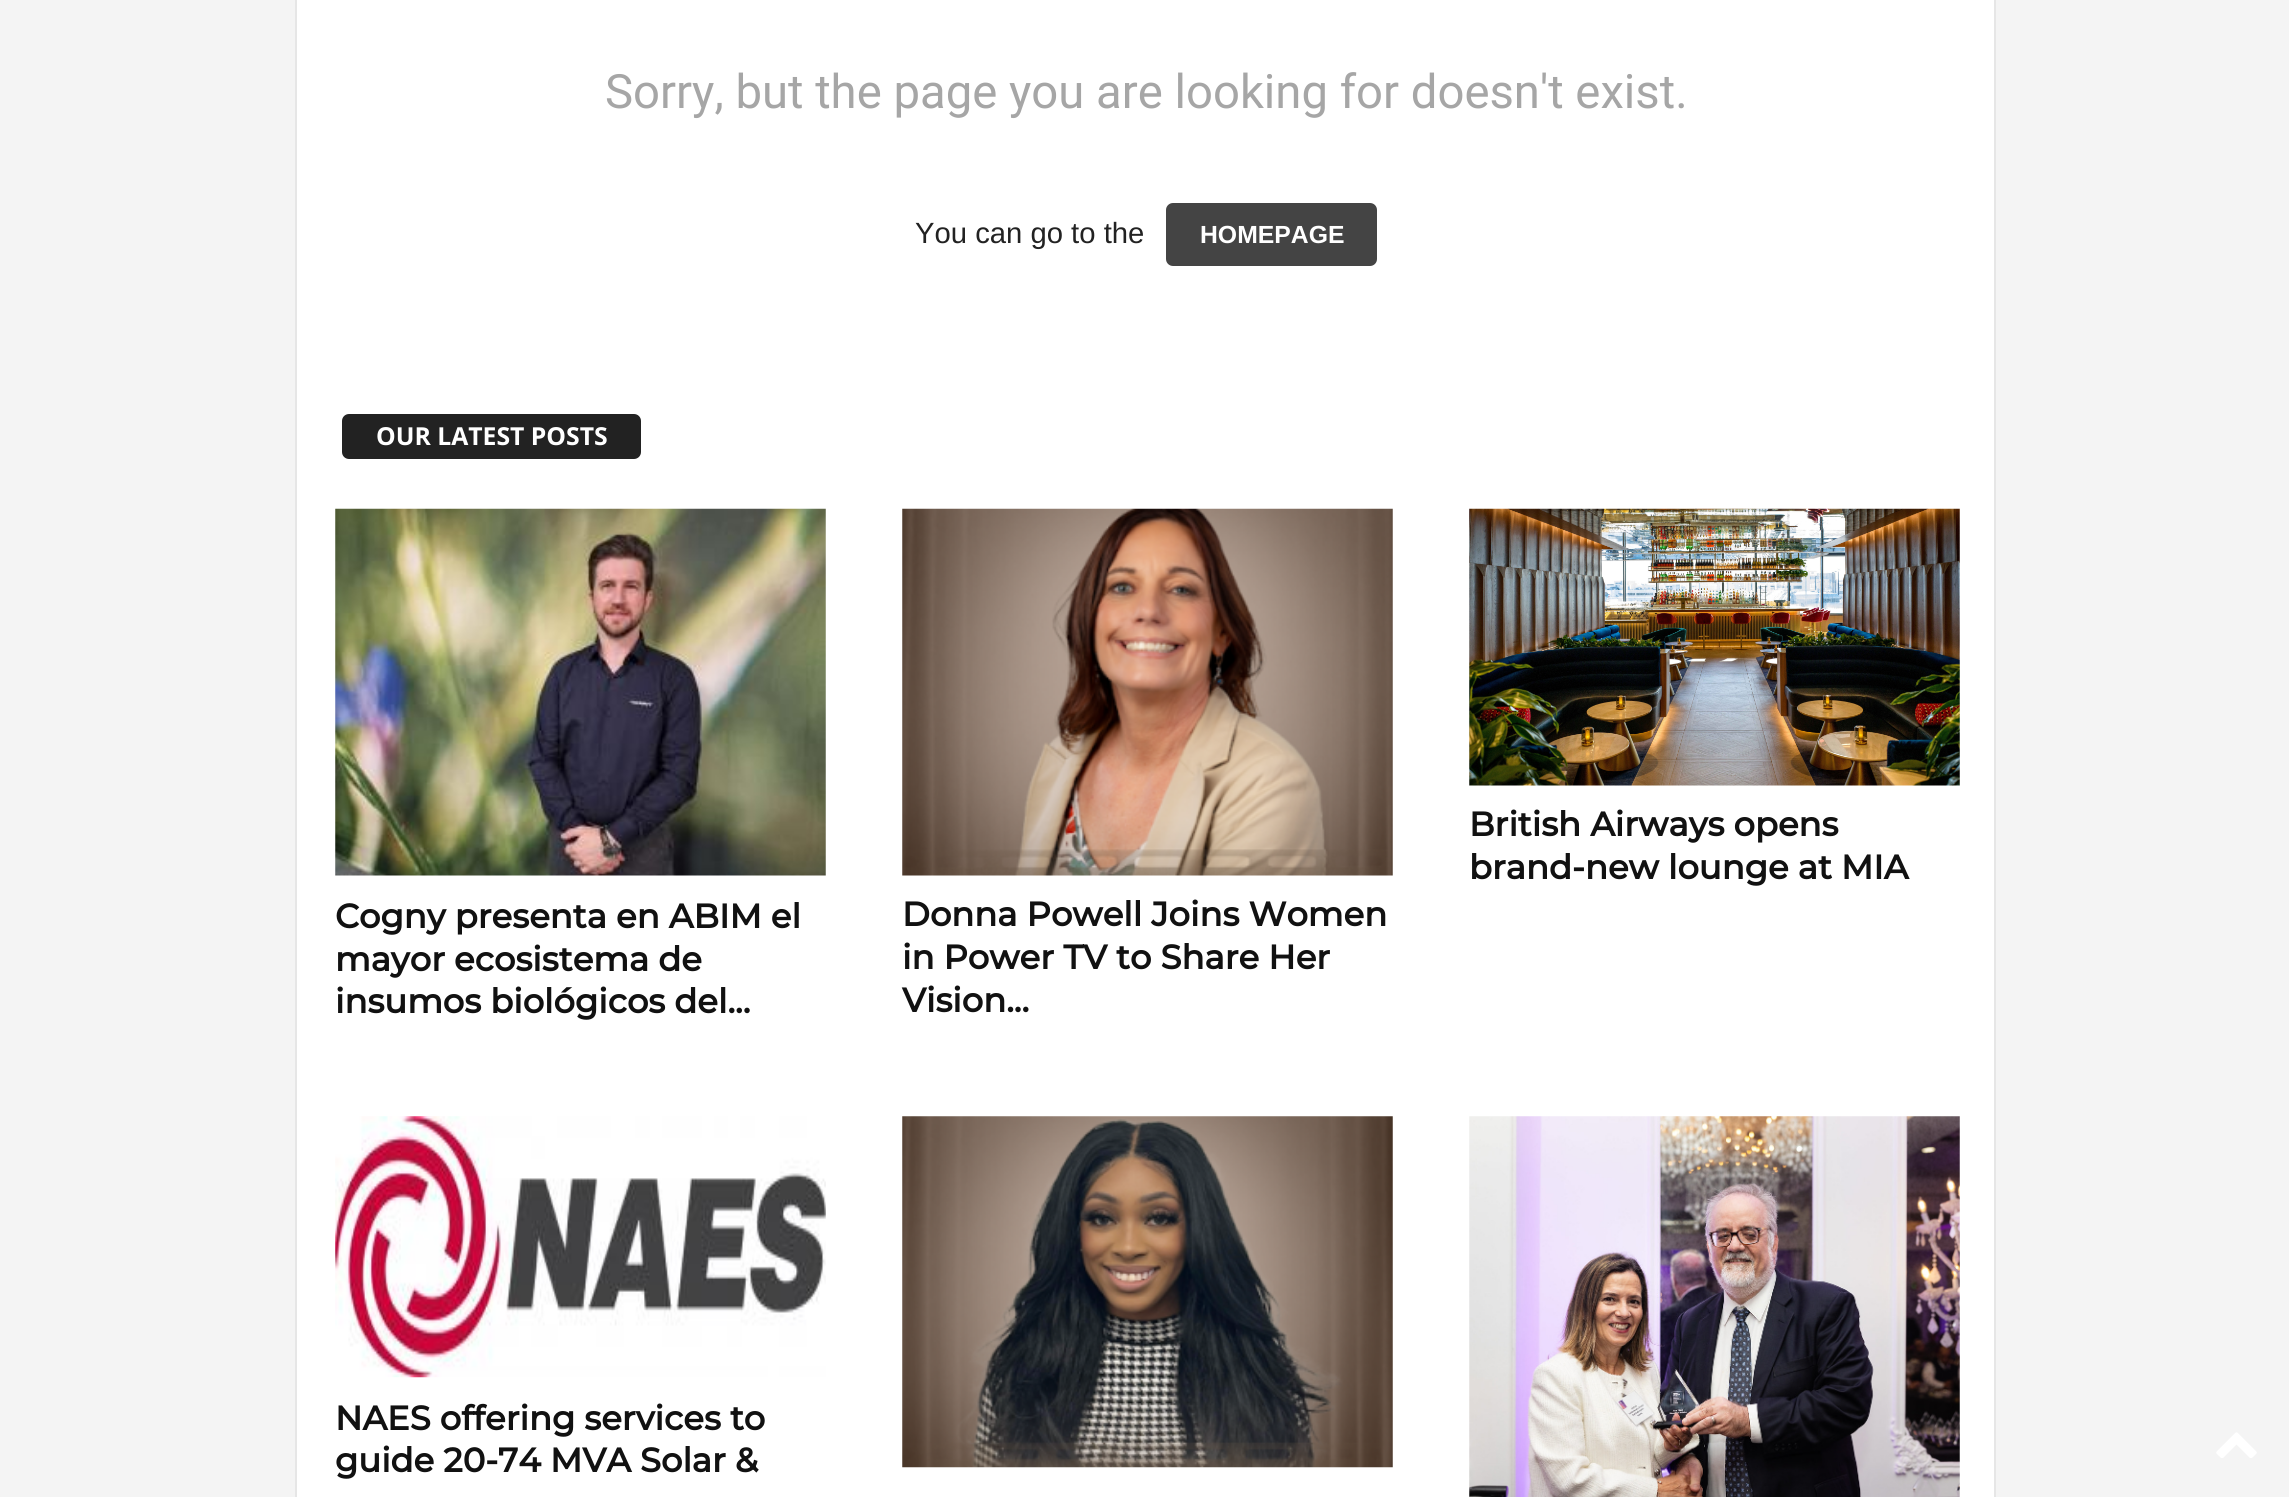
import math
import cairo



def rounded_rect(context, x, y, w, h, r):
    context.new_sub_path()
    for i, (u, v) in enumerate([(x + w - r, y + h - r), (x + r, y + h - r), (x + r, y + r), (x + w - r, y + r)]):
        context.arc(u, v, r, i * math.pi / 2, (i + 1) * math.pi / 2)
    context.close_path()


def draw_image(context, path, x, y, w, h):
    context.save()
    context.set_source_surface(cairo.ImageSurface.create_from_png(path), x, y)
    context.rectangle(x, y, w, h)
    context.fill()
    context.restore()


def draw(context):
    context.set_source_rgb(244 / 255, 244 / 255, 244 / 255)
    context.paint()
    context.set_source_rgb(1, 1, 1)
    context.rectangle(297, 0, 1697, 1497)
    context.fill()
    context.set_source_rgb(230 / 255, 230 / 255, 230 / 255)
    context.rectangle(295, 0, 2, 1497)
    context.fill()
    context.set_source_rgb(68 / 255, 68 / 255, 68 / 255)
    rounded_rect(context, 1166, 203, 211, 63, 7)
    context.fill()
    context.set_source_rgb(34 / 255, 34 / 255, 34 / 255)
    rounded_rect(context, 342, 414, 299, 45, 7)
    context.fill()
    draw_image(context, "images/1.png", 1469, 508, 491, 278)
    draw_image(context, "images/2.png", 335, 508, 491, 368)
    draw_image(context, "images/3.png", 902, 508, 491, 368)
    draw_image(context, "images/4.png", 335, 1116, 491, 262)
    draw_image(context, "images/5.png", 902, 1116, 491, 352)
    draw_image(context, "images/6.png", 1469, 1116, 491, 381)
    context.set_source_rgb(230 / 255, 230 / 255, 230 / 255)
    context.rectangle(1994, 0, 2, 1497)
    context.fill()
    draw_image(context, "images/7.png", 2216, 1432, 41, 26)
    context.select_font_face("Roboto")
    context.set_font_size(47.25)
    context.set_source_rgb(166 / 255, 166 / 255, 166 / 255)
    context.move_to(605, 108)
    context.show_text("Sorry, but the page you are looking for doesn't exist.")
    context.select_font_face("Liberation Sans")
    context.set_font_size(29.25)
    context.set_source_rgb(34 / 255, 34 / 255, 34 / 255)
    context.move_to(915, 243)
    context.show_text("You can go to the")
    context.select_font_face("Liberation Sans", cairo.FontSlant.NORMAL, cairo.FontWeight.BOLD)
    context.set_font_size(24.75)
    context.set_source_rgb(1, 1, 1)
    context.move_to(1200, 243)
    context.show_text("HOMEPAGE")
    context.select_font_face("Open Sans", cairo.FontSlant.NORMAL, cairo.FontWeight.BOLD)
    context.move_to(376, 445)
    context.show_text("OUR LATEST POSTS")
    context.select_font_face("Montserrat", cairo.FontSlant.NORMAL, cairo.FontWeight.BOLD)
    context.set_font_size(33.75)
    context.set_source_rgb(17 / 255, 17 / 255, 17 / 255)
    context.move_to(1469, 836)
    context.show_text("British Airways opens")
    context.move_to(1469, 879)
    context.show_text("brand-new lounge at MIA")
    context.move_to(335, 928)
    context.show_text("Cogny presenta en ABIM el")
    context.move_to(335, 971)
    context.show_text("mayor ecosistema de")
    context.move_to(335, 1013)
    context.show_text("insumos biológicos del...")
    context.move_to(902, 926)
    context.show_text("Donna Powell Joins Women")
    context.move_to(902, 969)
    context.show_text("in Power TV to Share Her")
    context.move_to(902, 1012)
    context.show_text("Vision...")
    context.move_to(335, 1430)
    context.show_text("NAES offering services to")
    context.move_to(335, 1472)
    context.show_text("guide 20-74 MVA Solar &")


surface = cairo.ImageSurface(cairo.Format.RGB24, 2289, 1497)
context = cairo.Context(surface)
options = cairo.FontOptions()
options.set_hint_metrics(cairo.HintMetrics.OFF)
options.set_hint_style(cairo.HintStyle.NONE)
context.set_font_options(options)
context.set_miter_limit(4)
draw(context)
surface.write_to_png("out.png")
